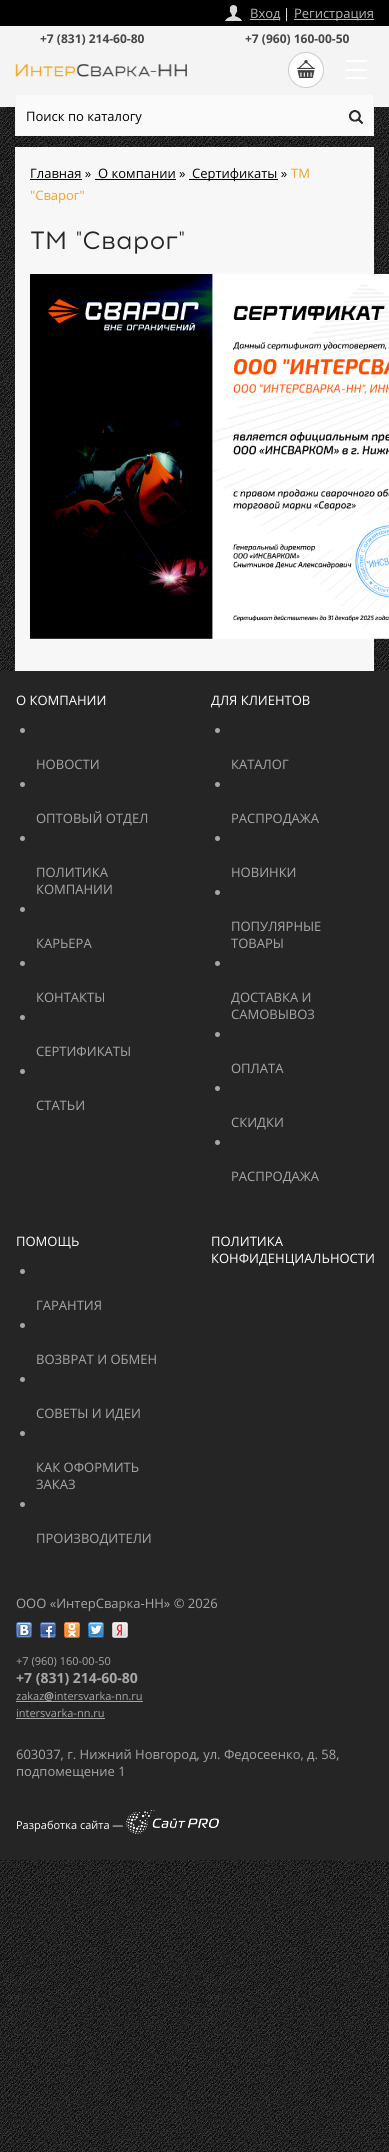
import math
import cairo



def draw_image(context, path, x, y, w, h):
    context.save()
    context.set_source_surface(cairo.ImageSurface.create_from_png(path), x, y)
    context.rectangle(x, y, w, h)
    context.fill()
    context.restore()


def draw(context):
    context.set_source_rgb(1, 1, 1)
    context.paint()
    draw_image(context, "images/1.png", 0, 107, 389, 2045)
    context.set_source_rgb(244 / 255, 244 / 255, 244 / 255)
    context.rectangle(0, 26, 389, 81)
    context.fill()
    context.set_source_rgb(0, 0, 0)
    context.rectangle(0, 0, 389, 26)
    context.fill()
    draw_image(context, "images/2.png", 225, 5, 17, 16)
    context.set_source_rgb(185 / 255, 185 / 255, 185 / 255)
    context.rectangle(250, 19, 30, 1)
    context.fill()
    context.rectangle(294, 19, 80, 1)
    context.fill()
    draw_image(context, "images/3.png", 15, 64, 172, 13)
    draw_image(context, "images/4.png", 288, 52, 36, 36)
    context.set_source_rgb(1, 1, 1)
    context.rectangle(346, 60, 21, 2)
    context.fill()
    context.rectangle(346, 69, 21, 2)
    context.fill()
    context.rectangle(346, 77, 21, 2)
    context.fill()
    context.set_source_rgb(250 / 255, 250 / 255, 250 / 255)
    context.rectangle(15.5, 94.5, 358, 41)
    context.fill_preserve()
    context.set_source_rgb(244 / 255, 244 / 255, 244 / 255)
    context.set_line_width(1)
    context.stroke()
    draw_image(context, "images/5.png", 349, 110, 14, 14)
    context.set_source_rgb(247 / 255, 247 / 255, 247 / 255)
    context.rectangle(15, 147, 359, 524)
    context.fill()
    context.set_source_rgb(0, 0, 0)
    context.rectangle(30, 179, 52, 1)
    context.fill()
    context.rectangle(95, 179, 81, 1)
    context.fill()
    context.rectangle(189, 179, 89, 1)
    context.fill()
    draw_image(context, "images/6.png", 30, 274, 359, 365)
    context.set_source_rgb(37 / 255, 37 / 255, 37 / 255)
    context.rectangle(0, 671, 389, 1189)
    context.fill()
    context.set_source_rgb(167 / 255, 167 / 255, 167 / 255)
    context.arc(22.5, 730.5, 2.5, 0, 2 * math.pi)
    context.fill()
    context.arc(22.5, 784.5, 2.5, 0, 2 * math.pi)
    context.fill()
    context.arc(22.5, 838.5, 2.5, 0, 2 * math.pi)
    context.fill()
    context.arc(22.5, 909.5, 2.5, 0, 2 * math.pi)
    context.fill()
    context.arc(22.5, 963.5, 2.5, 0, 2 * math.pi)
    context.fill()
    context.arc(22.5, 1017.5, 2.5, 0, 2 * math.pi)
    context.fill()
    context.arc(22.5, 1071.5, 2.5, 0, 2 * math.pi)
    context.fill()
    context.arc(217.5, 730.5, 2.5, 0, 2 * math.pi)
    context.fill()
    context.arc(217.5, 784.5, 2.5, 0, 2 * math.pi)
    context.fill()
    context.arc(217.5, 838.5, 2.5, 0, 2 * math.pi)
    context.fill()
    context.arc(217.5, 892.5, 2.5, 0, 2 * math.pi)
    context.fill()
    context.arc(217.5, 963.5, 2.5, 0, 2 * math.pi)
    context.fill()
    context.arc(217.5, 1034.5, 2.5, 0, 2 * math.pi)
    context.fill()
    context.arc(217.5, 1088.5, 2.5, 0, 2 * math.pi)
    context.fill()
    context.arc(217.5, 1142.5, 2.5, 0, 2 * math.pi)
    context.fill()
    context.arc(22.5, 1271.5, 2.5, 0, 2 * math.pi)
    context.fill()
    context.arc(22.5, 1325.5, 2.5, 0, 2 * math.pi)
    context.fill()
    context.arc(22.5, 1379.5, 2.5, 0, 2 * math.pi)
    context.fill()
    context.arc(22.5, 1433.5, 2.5, 0, 2 * math.pi)
    context.fill()
    context.arc(22.5, 1504.5, 2.5, 0, 2 * math.pi)
    context.fill()
    draw_image(context, "images/7.png", 16, 1622, 16, 16)
    draw_image(context, "images/8.png", 40, 1622, 16, 16)
    draw_image(context, "images/9.png", 64, 1622, 16, 16)
    draw_image(context, "images/10.png", 88, 1622, 16, 16)
    draw_image(context, "images/11.png", 112, 1622, 16, 16)
    context.rectangle(16, 1701, 127, 1)
    context.fill()
    context.rectangle(16, 1718, 89, 1)
    context.fill()
    draw_image(context, "images/12.png", 126, 1810, 93, 24)
    context.select_font_face("Open Sans")
    context.set_font_size(13)
    context.set_source_rgb(185 / 255, 185 / 255, 185 / 255)
    context.move_to(250, 18)
    context.show_text("Вход")
    context.set_source_rgb(1, 1, 1)
    context.move_to(283, 18)
    context.show_text("|")
    context.set_source_rgb(185 / 255, 185 / 255, 185 / 255)
    context.move_to(294, 18)
    context.show_text("Регистрация")
    context.select_font_face("Open Sans", cairo.FontSlant.NORMAL, cairo.FontWeight.BOLD)
    context.set_font_size(12)
    context.set_source_rgb(70 / 255, 70 / 255, 70 / 255)
    context.move_to(40, 43)
    context.show_text("+7 (831) 214-60-80")
    context.move_to(245, 43)
    context.show_text("+7 (960) 160-00-50")
    context.select_font_face("Open Sans")
    context.set_font_size(13)
    context.set_source_rgb(0, 0, 0)
    context.move_to(26, 121)
    context.show_text("Поиск по каталогу")
    context.move_to(30, 178)
    context.show_text("Главная »")
    context.move_to(98, 178)
    context.show_text("О компании »")
    context.move_to(192, 178)
    context.show_text("Сертификаты »")
    context.set_source_rgb(244 / 255, 162 / 255, 33 / 255)
    context.move_to(291, 178)
    context.show_text("ТМ")
    context.move_to(30, 200)
    context.show_text("\"Сварог\"")
    context.select_font_face("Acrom")
    context.set_font_size(25)
    context.set_source_rgb(37 / 255, 37 / 255, 37 / 255)
    context.move_to(30, 249)
    context.show_text("ТМ \"Сварог\"")
    context.select_font_face("Open Sans")
    context.set_font_size(13)
    context.set_source_rgb(1, 1, 1)
    context.move_to(16, 705)
    context.show_text("О КОМПАНИИ")
    context.set_source_rgb(167 / 255, 167 / 255, 167 / 255)
    context.move_to(36, 769)
    context.show_text("НОВОСТИ")
    context.move_to(36, 823)
    context.show_text("ОПТОВЫЙ ОТДЕЛ")
    context.move_to(36, 877)
    context.show_text("ПОЛИТИКА")
    context.move_to(36, 894)
    context.show_text("КОМПАНИИ")
    context.move_to(36, 948)
    context.show_text("КАРЬЕРА")
    context.move_to(36, 1002)
    context.show_text("КОНТАКТЫ")
    context.move_to(36, 1056)
    context.show_text("СЕРТИФИКАТЫ")
    context.move_to(36, 1110)
    context.show_text("СТАТЬИ")
    context.set_source_rgb(1, 1, 1)
    context.move_to(211, 705)
    context.show_text("ДЛЯ КЛИЕНТОВ")
    context.set_source_rgb(167 / 255, 167 / 255, 167 / 255)
    context.move_to(231, 769)
    context.show_text("КАТАЛОГ")
    context.move_to(231, 823)
    context.show_text("РАСПРОДАЖА")
    context.move_to(231, 877)
    context.show_text("НОВИНКИ")
    context.move_to(231, 931)
    context.show_text("ПОПУЛЯРНЫЕ")
    context.move_to(231, 948)
    context.show_text("ТОВАРЫ")
    context.move_to(231, 1002)
    context.show_text("ДОСТАВКА И")
    context.move_to(231, 1019)
    context.show_text("САМОВЫВОЗ")
    context.move_to(231, 1073)
    context.show_text("ОПЛАТА")
    context.move_to(231, 1127)
    context.show_text("СКИДКИ")
    context.move_to(231, 1181)
    context.show_text("РАСПРОДАЖА")
    context.set_source_rgb(1, 1, 1)
    context.move_to(16, 1246)
    context.show_text("ПОМОЩЬ")
    context.set_source_rgb(167 / 255, 167 / 255, 167 / 255)
    context.move_to(36, 1310)
    context.show_text("ГАРАНТИЯ")
    context.move_to(36, 1364)
    context.show_text("ВОЗВРАТ И ОБМЕН")
    context.move_to(36, 1418)
    context.show_text("СОВЕТЫ И ИДЕИ")
    context.move_to(36, 1472)
    context.show_text("КАК ОФОРМИТЬ")
    context.move_to(36, 1489)
    context.show_text("ЗАКАЗ")
    context.move_to(36, 1543)
    context.show_text("ПРОИЗВОДИТЕЛИ")
    context.set_source_rgb(1, 1, 1)
    context.move_to(211, 1246)
    context.show_text("ПОЛИТИКА")
    context.move_to(211, 1263)
    context.show_text("КОНФИДЕНЦИАЛЬНОСТИ")
    context.set_source_rgb(167 / 255, 167 / 255, 167 / 255)
    context.move_to(16, 1608)
    context.show_text("ООО «ИнтерСварка-НН» © 2026")
    context.set_font_size(11)
    context.move_to(16, 1665)
    context.show_text("+7 (960) 160-00-50")
    context.select_font_face("Open Sans", cairo.FontSlant.NORMAL, cairo.FontWeight.BOLD)
    context.set_font_size(14)
    context.move_to(16, 1683)
    context.show_text("+7 (831) 214-60-80")
    context.select_font_face("Open Sans")
    context.set_font_size(11)
    context.move_to(16, 1700)
    context.show_text("zakaz")
    context.select_font_face("Open Sans", cairo.FontSlant.NORMAL, cairo.FontWeight.BOLD)
    context.move_to(44, 1700)
    context.show_text("@")
    context.select_font_face("Open Sans")
    context.move_to(54, 1700)
    context.show_text("intersvarka-nn.ru")
    context.move_to(16, 1717)
    context.show_text("intersvarka-nn.ru")
    context.set_font_size(13)
    context.move_to(16, 1759)
    context.show_text("603037, г. Нижний Новгород, ул. Федосеенко, д. 58,")
    context.move_to(16, 1776)
    context.show_text("подпомещение 1")
    context.set_font_size(11)
    context.set_source_rgb(1, 1, 1)
    context.move_to(16, 1829)
    context.show_text("Разработка сайта —")


surface = cairo.ImageSurface(cairo.Format.RGB24, 389, 2152)
context = cairo.Context(surface)
options = cairo.FontOptions()
options.set_hint_metrics(cairo.HintMetrics.OFF)
options.set_hint_style(cairo.HintStyle.NONE)
context.set_font_options(options)
context.set_miter_limit(4)
draw(context)
surface.write_to_png("out.png")
